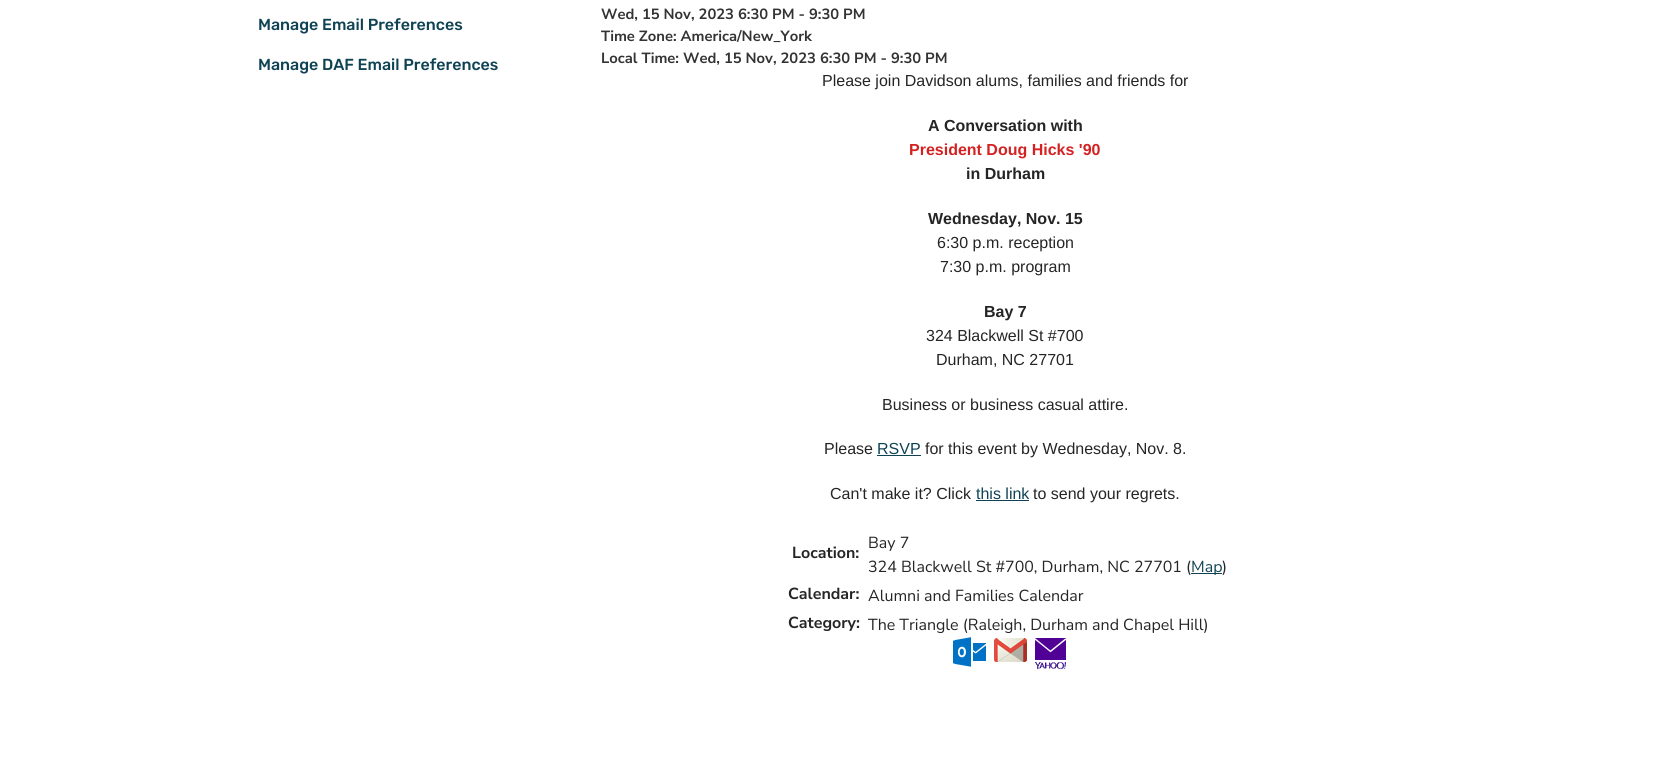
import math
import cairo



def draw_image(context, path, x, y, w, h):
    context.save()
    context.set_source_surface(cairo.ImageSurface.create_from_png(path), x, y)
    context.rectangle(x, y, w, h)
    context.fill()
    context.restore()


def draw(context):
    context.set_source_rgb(1, 1, 1)
    context.paint()
    context.set_source_rgb(15 / 255, 67 / 255, 84 / 255)
    context.rectangle(877, 455, 44, 1)
    context.fill()
    context.rectangle(976, 500, 53, 1)
    context.fill()
    context.rectangle(1191, 573, 31, 1)
    context.fill()
    draw_image(context, "images/1.png", 953, 637, 33, 30)
    draw_image(context, "images/2.png", 994, 638, 33, 24)
    draw_image(context, "images/3.png", 1035, 638, 31, 31)
    context.select_font_face("Rubik Medium")
    context.set_font_size(16)
    context.move_to(258, 30)
    context.show_text("Manage Email Preferences")
    context.move_to(258, 70)
    context.show_text("Manage DAF Email Preferences")
    context.select_font_face("Nunito Sans", cairo.FontSlant.NORMAL, cairo.FontWeight.BOLD)
    context.set_font_size(14.75)
    context.set_source_rgb(51 / 255, 51 / 255, 51 / 255)
    context.move_to(601, 19)
    context.show_text("Wed, 15 Nov, 2023 6:30 PM - 9:30 PM")
    context.move_to(601, 41)
    context.show_text("Time Zone: America/New_York")
    context.move_to(601, 63)
    context.show_text("Local Time: Wed, 15 Nov, 2023 6:30 PM - 9:30 PM")
    context.select_font_face("Liberation Sans")
    context.set_font_size(16)
    context.set_source_rgb(37 / 255, 37 / 255, 37 / 255)
    context.move_to(822, 86)
    context.show_text("Please join Davidson alums, families and friends for")
    context.select_font_face("Liberation Sans", cairo.FontSlant.NORMAL, cairo.FontWeight.BOLD)
    context.move_to(928, 131)
    context.show_text("A Conversation with")
    context.set_source_rgb(212 / 255, 33 / 255, 33 / 255)
    context.move_to(909, 155)
    context.show_text("President Doug Hicks '90")
    context.set_source_rgb(37 / 255, 37 / 255, 37 / 255)
    context.move_to(966, 179)
    context.show_text("in Durham")
    context.move_to(928, 224)
    context.show_text("Wednesday, Nov. 15")
    context.select_font_face("Liberation Sans")
    context.move_to(937, 248)
    context.show_text("6:30 p.m. reception")
    context.move_to(940, 272)
    context.show_text("7:30 p.m. program")
    context.select_font_face("Liberation Sans", cairo.FontSlant.NORMAL, cairo.FontWeight.BOLD)
    context.move_to(984, 317)
    context.show_text("Bay 7")
    context.select_font_face("Liberation Sans")
    context.move_to(926, 341)
    context.show_text("324 Blackwell St #700")
    context.move_to(936, 365)
    context.show_text("Durham, NC 27701")
    context.move_to(882, 410)
    context.show_text("Business or business casual attire.")
    context.move_to(824, 454)
    context.show_text("Please")
    context.set_source_rgb(15 / 255, 67 / 255, 84 / 255)
    context.move_to(877, 454)
    context.show_text("RSVP")
    context.set_source_rgb(37 / 255, 37 / 255, 37 / 255)
    context.move_to(925, 454)
    context.show_text("for this event by Wednesday, Nov. 8.")
    context.move_to(830, 499)
    context.show_text("Can't make it? Click")
    context.set_source_rgb(15 / 255, 67 / 255, 84 / 255)
    context.move_to(976, 499)
    context.show_text("this link")
    context.set_source_rgb(37 / 255, 37 / 255, 37 / 255)
    context.move_to(1033, 499)
    context.show_text("to send your regrets.")
    context.select_font_face("Nunito Sans", cairo.FontSlant.NORMAL, cairo.FontWeight.BOLD)
    context.move_to(792, 558)
    context.show_text("Location:")
    context.select_font_face("Nunito Sans")
    context.move_to(868, 548)
    context.show_text("Bay 7")
    context.move_to(868, 572)
    context.show_text("324 Blackwell St #700, Durham, NC 27701 (")
    context.set_source_rgb(15 / 255, 67 / 255, 84 / 255)
    context.move_to(1191, 572)
    context.show_text("Map")
    context.set_source_rgb(37 / 255, 37 / 255, 37 / 255)
    context.move_to(1222, 572)
    context.show_text(")")
    context.select_font_face("Nunito Sans", cairo.FontSlant.NORMAL, cairo.FontWeight.BOLD)
    context.move_to(788, 599)
    context.show_text("Calendar:")
    context.select_font_face("Nunito Sans")
    context.move_to(868, 601)
    context.show_text("Alumni and Families Calendar")
    context.select_font_face("Nunito Sans", cairo.FontSlant.NORMAL, cairo.FontWeight.BOLD)
    context.move_to(788, 628)
    context.show_text("Category:")
    context.select_font_face("Nunito Sans")
    context.move_to(868, 630)
    context.show_text("The Triangle (Raleigh, Durham and Chapel Hill)")


surface = cairo.ImageSurface(cairo.Format.RGB24, 1667, 763)
context = cairo.Context(surface)
options = cairo.FontOptions()
options.set_hint_metrics(cairo.HintMetrics.OFF)
options.set_hint_style(cairo.HintStyle.NONE)
context.set_font_options(options)
context.set_miter_limit(4)
draw(context)
surface.write_to_png("out.png")
